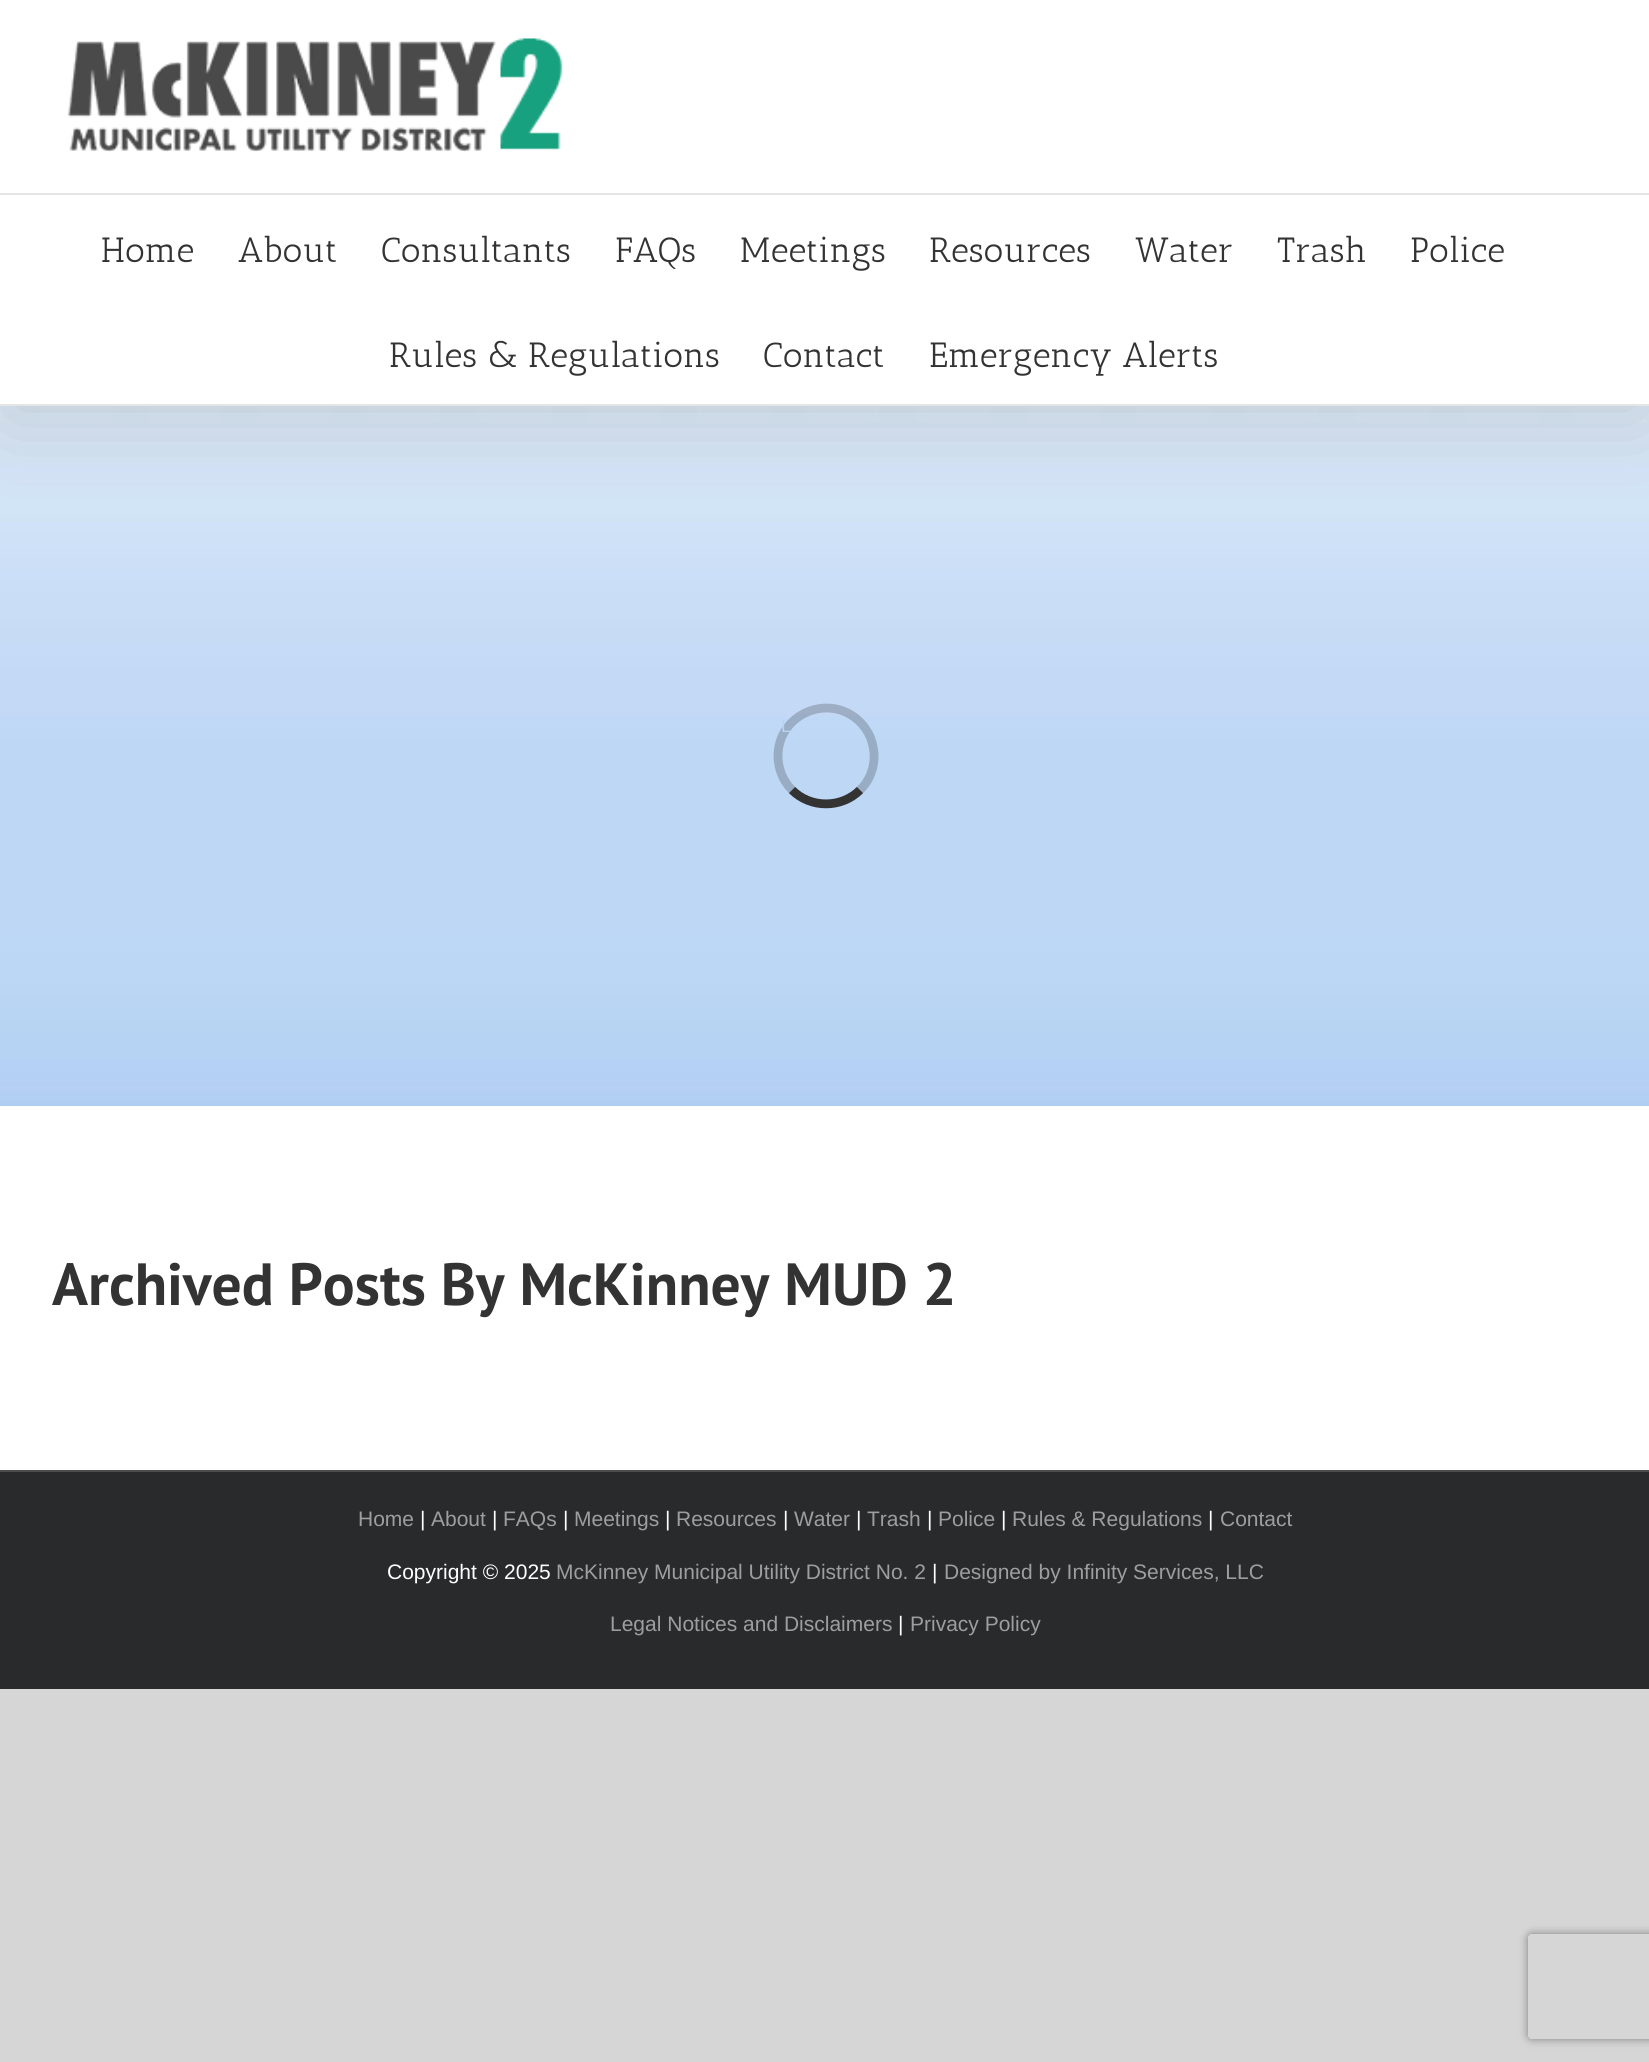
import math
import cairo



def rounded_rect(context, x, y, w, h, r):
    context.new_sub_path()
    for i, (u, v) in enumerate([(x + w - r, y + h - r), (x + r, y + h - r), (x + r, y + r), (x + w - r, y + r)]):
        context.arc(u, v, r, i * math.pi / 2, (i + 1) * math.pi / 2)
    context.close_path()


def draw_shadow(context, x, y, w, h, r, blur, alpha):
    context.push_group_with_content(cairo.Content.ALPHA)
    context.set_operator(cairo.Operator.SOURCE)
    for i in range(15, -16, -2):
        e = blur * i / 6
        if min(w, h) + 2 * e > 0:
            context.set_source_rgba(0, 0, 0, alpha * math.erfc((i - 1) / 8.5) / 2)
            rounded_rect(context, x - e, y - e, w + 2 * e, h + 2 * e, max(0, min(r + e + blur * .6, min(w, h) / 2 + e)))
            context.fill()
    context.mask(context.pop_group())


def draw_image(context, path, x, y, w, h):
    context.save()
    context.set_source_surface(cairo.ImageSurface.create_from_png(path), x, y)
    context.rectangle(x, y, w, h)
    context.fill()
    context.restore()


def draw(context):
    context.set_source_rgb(215 / 255, 214 / 255, 214 / 255)
    context.paint()
    draw_image(context, "images/1.png", 0, 406, 1649, 700)
    context.set_source_rgb(0, 0, 0)
    draw_shadow(context, 4, 21, 1643, 399, 0, 44, 0.14)
    context.set_source_rgb(1, 1, 1)
    context.rectangle(0, 0, 1649, 193)
    context.fill()
    context.set_source_rgb(229 / 255, 229 / 255, 229 / 255)
    context.rectangle(0, 193, 1649, 2)
    context.fill()
    draw_image(context, "images/2.png", 67, 38, 496, 114)
    context.set_source_rgb(1, 1, 1)
    context.rectangle(0, 195, 1649, 209)
    context.fill()
    context.set_source_rgb(229 / 255, 229 / 255, 229 / 255)
    context.rectangle(0, 404, 1649, 2)
    context.fill()
    context.new_path()
    context.move_to(860, 790)
    context.curve_to(841.5, 808.5, 810.5, 808.5, 792, 790)
    context.set_source_rgb(51 / 255, 51 / 255, 51 / 255)
    context.set_line_width(8.8)
    context.stroke()
    context.new_path()
    context.move_to(792, 790)
    context.curve_to(783, 781, 778, 768.5, 778, 756)
    context.curve_to(778, 713.5, 830, 692, 860, 722)
    context.curve_to(866.5, 728.5, 871.5, 737.5, 873, 746.5)
    context.curve_to(876.5, 762, 871.5, 779, 860, 790)
    context.set_source_rgba(0, 0, 0, 0.2)
    context.stroke()
    context.set_source_rgb(1, 1, 1)
    context.rectangle(0, 1106, 1649, 364)
    context.fill()
    context.set_source_rgb(40 / 255, 42 / 255, 43 / 255)
    context.rectangle(0, 1472, 1649, 217)
    context.fill()
    context.set_source_rgb(75 / 255, 76 / 255, 77 / 255)
    context.rectangle(0, 1470, 1649, 2)
    context.fill()
    context.save()
    context.set_fill_rule(cairo.FillRule.EVEN_ODD)
    context.new_path()
    context.move_to(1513, 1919)
    context.line_to(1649, 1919)
    context.line_to(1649, 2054)
    context.line_to(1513, 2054)
    context.close_path()
    context.move_to(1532, 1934)
    context.line_to(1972, 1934)
    context.curve_to(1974, 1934, 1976, 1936, 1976, 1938)
    context.line_to(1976, 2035)
    context.curve_to(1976, 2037, 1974, 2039, 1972, 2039)
    context.line_to(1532, 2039)
    context.curve_to(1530, 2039, 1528, 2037, 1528, 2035)
    context.line_to(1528, 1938)
    context.curve_to(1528, 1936, 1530, 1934, 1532, 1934)
    context.close_path()
    context.clip()
    context.set_source_rgb(128 / 255, 128 / 255, 128 / 255)
    draw_shadow(context, 1528, 1934, 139, 105, 4, 4.5, 1)
    context.restore()
    context.select_font_face("Antic Slab")
    context.set_font_size(35)
    context.set_source_rgb(51 / 255, 51 / 255, 51 / 255)
    context.move_to(101, 262)
    context.show_text("Home")
    context.move_to(238, 262)
    context.show_text("About")
    context.move_to(381, 262)
    context.show_text("Consultants")
    context.move_to(615, 262)
    context.show_text("FAQs")
    context.move_to(740, 262)
    context.show_text("Meetings")
    context.move_to(929, 262)
    context.show_text("Resources")
    context.move_to(1135, 262)
    context.show_text("Water")
    context.move_to(1277, 262)
    context.show_text("Trash")
    context.move_to(1410, 262)
    context.show_text("Police")
    context.move_to(389, 367)
    context.show_text("Rules & Regulations")
    context.move_to(763, 367)
    context.show_text("Contact")
    context.move_to(929, 367)
    context.show_text("Emergency Alerts")
    context.select_font_face("Liberation Sans")
    context.set_font_size(18)
    context.set_source_rgb(187 / 255, 211 / 255, 241 / 255)
    context.move_to(781, 732)
    context.show_text("L")
    context.select_font_face("PT Sans", cairo.FontSlant.NORMAL, cairo.FontWeight.BOLD)
    context.set_font_size(59.5)
    context.set_source_rgb(51 / 255, 51 / 255, 51 / 255)
    context.move_to(52, 1305)
    context.show_text("Archived Posts By McKinney MUD 2")
    context.select_font_face("Liberation Sans")
    context.set_font_size(21)
    context.set_source_rgb(158 / 255, 158 / 255, 158 / 255)
    context.move_to(358, 1526)
    context.show_text("Home")
    context.set_source_rgb(1, 1, 1)
    context.move_to(420, 1526)
    context.show_text("|")
    context.set_source_rgb(158 / 255, 158 / 255, 158 / 255)
    context.move_to(431, 1526)
    context.show_text("About")
    context.set_source_rgb(1, 1, 1)
    context.move_to(492, 1526)
    context.show_text("|")
    context.set_source_rgb(158 / 255, 158 / 255, 158 / 255)
    context.move_to(503, 1526)
    context.show_text("FAQs")
    context.set_source_rgb(1, 1, 1)
    context.move_to(563, 1526)
    context.show_text("|")
    context.set_source_rgb(158 / 255, 158 / 255, 158 / 255)
    context.move_to(574, 1526)
    context.show_text("Meetings")
    context.set_source_rgb(1, 1, 1)
    context.move_to(665, 1526)
    context.show_text("|")
    context.set_source_rgb(158 / 255, 158 / 255, 158 / 255)
    context.move_to(676, 1526)
    context.show_text("Resources")
    context.set_source_rgb(1, 1, 1)
    context.move_to(783, 1526)
    context.show_text("|")
    context.set_source_rgb(158 / 255, 158 / 255, 158 / 255)
    context.move_to(794, 1526)
    context.show_text("Water")
    context.set_source_rgb(1, 1, 1)
    context.move_to(856, 1526)
    context.show_text("|")
    context.set_source_rgb(158 / 255, 158 / 255, 158 / 255)
    context.move_to(867, 1526)
    context.show_text("Trash")
    context.set_source_rgb(1, 1, 1)
    context.move_to(927, 1526)
    context.show_text("|")
    context.set_source_rgb(158 / 255, 158 / 255, 158 / 255)
    context.move_to(938, 1526)
    context.show_text("Police")
    context.set_source_rgb(1, 1, 1)
    context.move_to(1001, 1526)
    context.show_text("|")
    context.set_source_rgb(158 / 255, 158 / 255, 158 / 255)
    context.move_to(1012, 1526)
    context.show_text("Rules & Regulations")
    context.set_source_rgb(1, 1, 1)
    context.move_to(1208, 1526)
    context.show_text("|")
    context.set_source_rgb(158 / 255, 158 / 255, 158 / 255)
    context.move_to(1220, 1526)
    context.show_text("Contact")
    context.set_source_rgb(1, 1, 1)
    context.move_to(387, 1579)
    context.show_text("Copyright © 2025")
    context.set_source_rgb(158 / 255, 158 / 255, 158 / 255)
    context.move_to(556, 1579)
    context.show_text("McKinney Municipal Utility District No. 2")
    context.set_source_rgb(1, 1, 1)
    context.move_to(932, 1579)
    context.show_text("|")
    context.set_source_rgb(158 / 255, 158 / 255, 158 / 255)
    context.move_to(944, 1579)
    context.show_text("Designed by Infinity Services, LLC")
    context.move_to(610, 1631)
    context.show_text("Legal Notices and Disclaimers")
    context.set_source_rgb(1, 1, 1)
    context.move_to(898, 1631)
    context.show_text("|")
    context.set_source_rgb(158 / 255, 158 / 255, 158 / 255)
    context.move_to(910, 1631)
    context.show_text("Privacy Policy")


surface = cairo.ImageSurface(cairo.Format.RGB24, 1649, 2062)
context = cairo.Context(surface)
options = cairo.FontOptions()
options.set_hint_metrics(cairo.HintMetrics.OFF)
options.set_hint_style(cairo.HintStyle.NONE)
context.set_font_options(options)
context.set_miter_limit(4)
draw(context)
surface.write_to_png("out.png")
